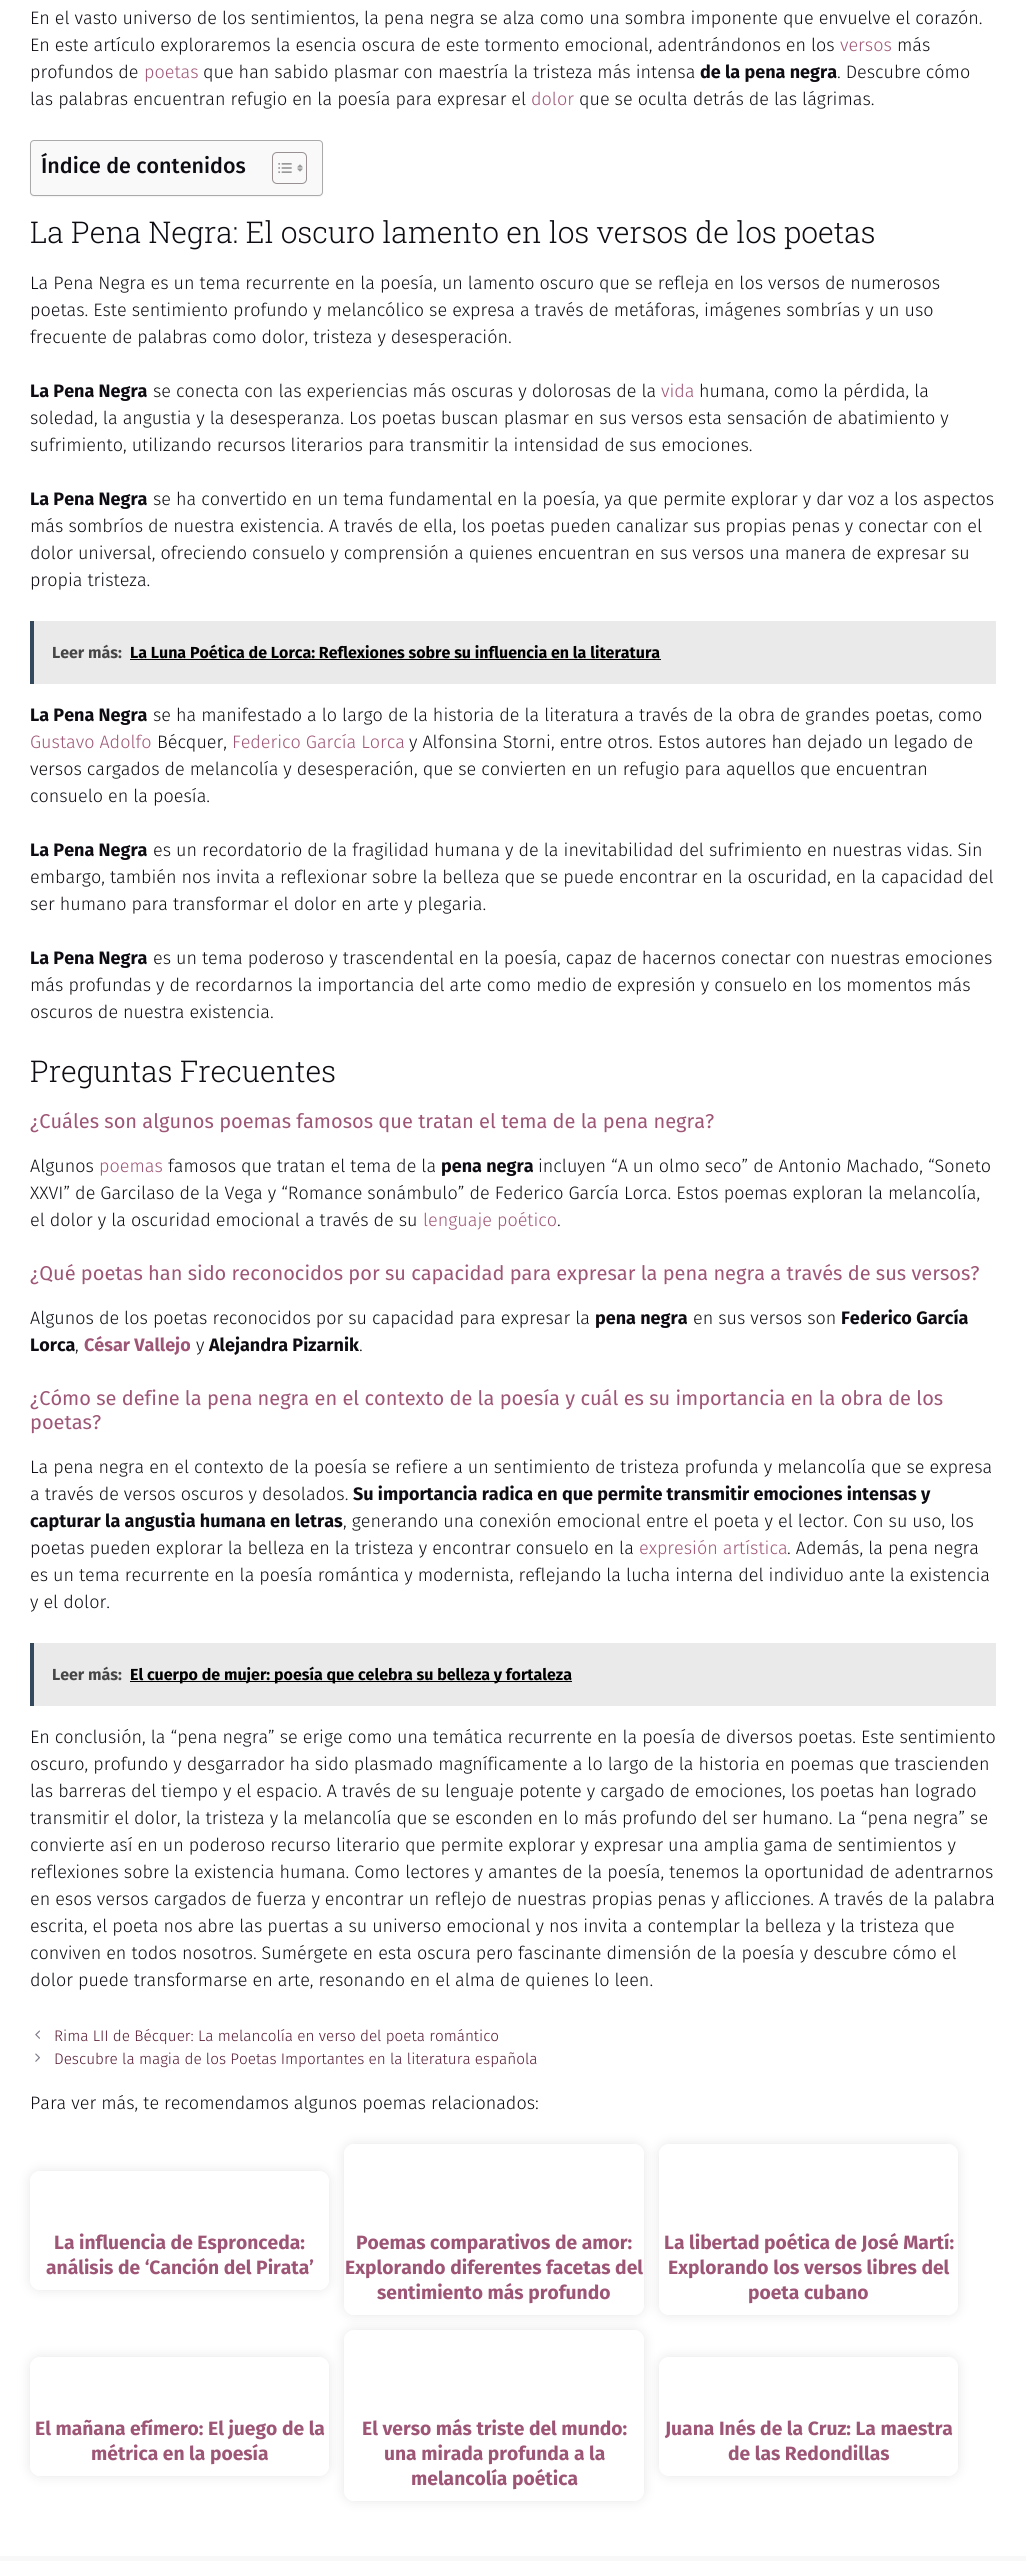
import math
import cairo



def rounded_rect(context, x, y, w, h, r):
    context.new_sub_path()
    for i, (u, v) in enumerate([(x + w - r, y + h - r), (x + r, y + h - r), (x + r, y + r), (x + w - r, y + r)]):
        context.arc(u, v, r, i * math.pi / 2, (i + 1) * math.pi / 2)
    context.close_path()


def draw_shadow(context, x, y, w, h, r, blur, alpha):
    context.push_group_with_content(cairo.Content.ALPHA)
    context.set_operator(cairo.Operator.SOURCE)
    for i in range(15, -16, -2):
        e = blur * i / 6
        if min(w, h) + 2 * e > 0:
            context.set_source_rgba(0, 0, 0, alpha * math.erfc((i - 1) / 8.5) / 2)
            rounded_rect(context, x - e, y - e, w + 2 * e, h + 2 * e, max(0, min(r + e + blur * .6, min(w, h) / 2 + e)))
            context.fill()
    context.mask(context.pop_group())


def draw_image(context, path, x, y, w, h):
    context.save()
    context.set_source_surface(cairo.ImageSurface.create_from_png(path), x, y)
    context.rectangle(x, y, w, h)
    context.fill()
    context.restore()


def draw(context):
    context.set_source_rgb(249 / 255, 248 / 255, 248 / 255)
    context.paint()
    context.set_source_rgb(1, 1, 1)
    context.rectangle(0, 0, 1026, 2556)
    context.fill()
    context.set_source_rgb(0, 0, 0)
    draw_shadow(context, 30, 141, 293, 56, 4, 0.5, 0.05)
    context.set_source_rgb(249 / 255, 249 / 255, 249 / 255)
    rounded_rect(context, 30.5, 140.5, 292, 55, 3.5)
    context.fill_preserve()
    context.set_source_rgb(170 / 255, 170 / 255, 170 / 255)
    context.set_line_width(1)
    context.stroke()
    rounded_rect(context, 272.5, 152.5, 34, 31, 4.5)
    context.set_source_rgb(153 / 255, 145 / 255, 145 / 255)
    context.stroke()
    draw_image(context, "images/1.png", 278, 163, 14, 10)
    draw_image(context, "images/2.png", 297, 164, 6, 8)
    context.set_source_rgb(234 / 255, 234 / 255, 234 / 255)
    context.rectangle(34, 621, 962, 63)
    context.fill()
    context.set_source_rgb(52 / 255, 73 / 255, 94 / 255)
    context.rectangle(30, 621, 4, 63)
    context.fill()
    context.set_source_rgb(0, 0, 0)
    context.rectangle(130, 659, 531, 1)
    context.fill()
    context.set_source_rgb(234 / 255, 234 / 255, 234 / 255)
    context.rectangle(34, 1643, 962, 63)
    context.fill()
    context.set_source_rgb(52 / 255, 73 / 255, 94 / 255)
    context.rectangle(30, 1643, 4, 63)
    context.fill()
    context.set_source_rgb(0, 0, 0)
    context.rectangle(130, 1681, 442, 1)
    context.fill()
    draw_image(context, "images/3.png", 35, 2030, 5, 9)
    draw_image(context, "images/4.png", 35, 2053, 5, 9)
    context.save()
    context.set_fill_rule(cairo.FillRule.EVEN_ODD)
    context.new_path()
    context.move_to(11, 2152)
    context.line_to(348, 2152)
    context.line_to(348, 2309)
    context.line_to(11, 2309)
    context.close_path()
    context.move_to(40, 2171)
    context.line_to(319, 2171)
    context.curve_to(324.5, 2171, 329, 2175.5, 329, 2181)
    context.line_to(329, 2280)
    context.curve_to(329, 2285.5, 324.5, 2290, 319, 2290)
    context.line_to(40, 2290)
    context.curve_to(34.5, 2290, 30, 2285.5, 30, 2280)
    context.line_to(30, 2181)
    context.curve_to(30, 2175.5, 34.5, 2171, 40, 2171)
    context.close_path()
    context.clip()
    context.set_source_rgb(230 / 255, 230 / 255, 230 / 255)
    draw_shadow(context, 30, 2171, 299, 119, 10, 6, 1)
    context.restore()
    context.save()
    context.set_fill_rule(cairo.FillRule.EVEN_ODD)
    context.new_path()
    context.move_to(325, 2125)
    context.line_to(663, 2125)
    context.line_to(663, 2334)
    context.line_to(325, 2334)
    context.close_path()
    context.move_to(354, 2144)
    context.line_to(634, 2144)
    context.curve_to(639.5, 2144, 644, 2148.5, 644, 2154)
    context.line_to(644, 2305)
    context.curve_to(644, 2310.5, 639.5, 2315, 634, 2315)
    context.line_to(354, 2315)
    context.curve_to(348.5, 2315, 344, 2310.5, 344, 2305)
    context.line_to(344, 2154)
    context.curve_to(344, 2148.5, 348.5, 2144, 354, 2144)
    context.close_path()
    context.clip()
    context.set_source_rgb(230 / 255, 230 / 255, 230 / 255)
    draw_shadow(context, 344, 2144, 300, 171, 10, 6, 1)
    context.restore()
    context.save()
    context.set_fill_rule(cairo.FillRule.EVEN_ODD)
    context.new_path()
    context.move_to(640, 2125)
    context.line_to(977, 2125)
    context.line_to(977, 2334)
    context.line_to(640, 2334)
    context.close_path()
    context.move_to(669, 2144)
    context.line_to(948, 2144)
    context.curve_to(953.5, 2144, 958, 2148.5, 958, 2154)
    context.line_to(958, 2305)
    context.curve_to(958, 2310.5, 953.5, 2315, 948, 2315)
    context.line_to(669, 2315)
    context.curve_to(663.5, 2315, 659, 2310.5, 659, 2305)
    context.line_to(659, 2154)
    context.curve_to(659, 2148.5, 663.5, 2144, 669, 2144)
    context.close_path()
    context.clip()
    context.set_source_rgb(230 / 255, 230 / 255, 230 / 255)
    draw_shadow(context, 659, 2144, 299, 171, 10, 6, 1)
    context.restore()
    context.save()
    context.set_fill_rule(cairo.FillRule.EVEN_ODD)
    context.new_path()
    context.move_to(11, 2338)
    context.line_to(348, 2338)
    context.line_to(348, 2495)
    context.line_to(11, 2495)
    context.close_path()
    context.move_to(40, 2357)
    context.line_to(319, 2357)
    context.curve_to(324.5, 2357, 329, 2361.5, 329, 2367)
    context.line_to(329, 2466)
    context.curve_to(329, 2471.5, 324.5, 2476, 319, 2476)
    context.line_to(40, 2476)
    context.curve_to(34.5, 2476, 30, 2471.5, 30, 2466)
    context.line_to(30, 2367)
    context.curve_to(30, 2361.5, 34.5, 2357, 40, 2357)
    context.close_path()
    context.clip()
    context.set_source_rgb(230 / 255, 230 / 255, 230 / 255)
    draw_shadow(context, 30, 2357, 299, 119, 10, 6, 1)
    context.restore()
    context.save()
    context.set_fill_rule(cairo.FillRule.EVEN_ODD)
    context.new_path()
    context.move_to(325, 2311)
    context.line_to(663, 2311)
    context.line_to(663, 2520)
    context.line_to(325, 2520)
    context.close_path()
    context.move_to(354, 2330)
    context.line_to(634, 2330)
    context.curve_to(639.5, 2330, 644, 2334.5, 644, 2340)
    context.line_to(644, 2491)
    context.curve_to(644, 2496.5, 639.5, 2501, 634, 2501)
    context.line_to(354, 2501)
    context.curve_to(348.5, 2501, 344, 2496.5, 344, 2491)
    context.line_to(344, 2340)
    context.curve_to(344, 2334.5, 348.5, 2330, 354, 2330)
    context.close_path()
    context.clip()
    context.set_source_rgb(230 / 255, 230 / 255, 230 / 255)
    draw_shadow(context, 344, 2330, 300, 171, 10, 6, 1)
    context.restore()
    context.save()
    context.set_fill_rule(cairo.FillRule.EVEN_ODD)
    context.new_path()
    context.move_to(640, 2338)
    context.line_to(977, 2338)
    context.line_to(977, 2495)
    context.line_to(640, 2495)
    context.close_path()
    context.move_to(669, 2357)
    context.line_to(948, 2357)
    context.curve_to(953.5, 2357, 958, 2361.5, 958, 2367)
    context.line_to(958, 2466)
    context.curve_to(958, 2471.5, 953.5, 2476, 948, 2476)
    context.line_to(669, 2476)
    context.curve_to(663.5, 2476, 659, 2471.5, 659, 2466)
    context.line_to(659, 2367)
    context.curve_to(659, 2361.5, 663.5, 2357, 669, 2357)
    context.close_path()
    context.clip()
    context.set_source_rgb(230 / 255, 230 / 255, 230 / 255)
    draw_shadow(context, 659, 2357, 299, 119, 10, 6, 1)
    context.restore()
    context.select_font_face("Fira Sans Light")
    context.set_font_size(18)
    context.set_source_rgb(14 / 255, 12 / 255, 18 / 255)
    context.move_to(30, 24)
    context.show_text("En el vasto universo de los sentimientos, la pena negra se alza como una sombra imponente que envuelve el corazón.")
    context.move_to(30, 51)
    context.show_text("En este artículo exploraremos la esencia oscura de este tormento emocional, adentrándonos en los")
    context.set_source_rgb(158 / 255, 86 / 255, 118 / 255)
    context.move_to(840, 51)
    context.show_text("versos")
    context.set_source_rgb(14 / 255, 12 / 255, 18 / 255)
    context.move_to(897, 51)
    context.show_text("más")
    context.move_to(30, 78)
    context.show_text("profundos de")
    context.set_source_rgb(158 / 255, 86 / 255, 118 / 255)
    context.move_to(144, 78)
    context.show_text("poetas")
    context.set_source_rgb(14 / 255, 12 / 255, 18 / 255)
    context.move_to(203, 78)
    context.show_text("que han sabido plasmar con maestría la tristeza más intensa")
    context.select_font_face("Fira Sans", cairo.FontSlant.NORMAL, cairo.FontWeight.BOLD)
    context.move_to(700, 78)
    context.show_text("de la pena negra")
    context.select_font_face("Fira Sans Light")
    context.move_to(837, 78)
    context.show_text(". Descubre cómo")
    context.move_to(30, 105)
    context.show_text("las palabras encuentran refugio en la poesía para expresar el")
    context.set_source_rgb(158 / 255, 86 / 255, 118 / 255)
    context.move_to(531, 105)
    context.show_text("dolor")
    context.set_source_rgb(14 / 255, 12 / 255, 18 / 255)
    context.move_to(579, 105)
    context.show_text("que se oculta detrás de las lágrimas.")
    context.select_font_face("Fira Sans Medium")
    context.set_font_size(21.5)
    context.move_to(41, 173)
    context.show_text("Índice de contenidos")
    context.select_font_face("Roboto Slab Light")
    context.set_font_size(30)
    context.move_to(30, 243)
    context.show_text("La Pena Negra: El oscuro lamento en los versos de los poetas")
    context.select_font_face("Fira Sans Light")
    context.set_font_size(18)
    context.move_to(30, 289)
    context.show_text("La Pena Negra es un tema recurrente en la poesía, un lamento oscuro que se refleja en los versos de numerosos")
    context.move_to(30, 316)
    context.show_text("poetas. Este sentimiento profundo y melancólico se expresa a través de metáforas, imágenes sombrías y un uso")
    context.move_to(30, 343)
    context.show_text("frecuente de palabras como dolor, tristeza y desesperación.")
    context.select_font_face("Fira Sans", cairo.FontSlant.NORMAL, cairo.FontWeight.BOLD)
    context.move_to(30, 397)
    context.show_text("La Pena Negra")
    context.select_font_face("Fira Sans Light")
    context.move_to(153, 397)
    context.show_text("se conecta con las experiencias más oscuras y dolorosas de la")
    context.set_source_rgb(158 / 255, 86 / 255, 118 / 255)
    context.move_to(661, 397)
    context.show_text("vida")
    context.set_source_rgb(14 / 255, 12 / 255, 18 / 255)
    context.move_to(699, 397)
    context.show_text("humana, como la pérdida, la")
    context.move_to(30, 424)
    context.show_text("soledad, la angustia y la desesperanza. Los poetas buscan plasmar en sus versos esta sensación de abatimiento y")
    context.move_to(30, 451)
    context.show_text("sufrimiento, utilizando recursos literarios para transmitir la intensidad de sus emociones.")
    context.select_font_face("Fira Sans", cairo.FontSlant.NORMAL, cairo.FontWeight.BOLD)
    context.move_to(30, 505)
    context.show_text("La Pena Negra")
    context.select_font_face("Fira Sans Light")
    context.move_to(153, 505)
    context.show_text("se ha convertido en un tema fundamental en la poesía, ya que permite explorar y dar voz a los aspectos")
    context.move_to(30, 532)
    context.show_text("más sombríos de nuestra existencia. A través de ella, los poetas pueden canalizar sus propias penas y conectar con el")
    context.move_to(30, 559)
    context.show_text("dolor universal, ofreciendo consuelo y comprensión a quienes encuentran en sus versos una manera de expresar su")
    context.move_to(30, 586)
    context.show_text("propia tristeza.")
    context.select_font_face("Fira Sans", cairo.FontSlant.NORMAL, cairo.FontWeight.BOLD)
    context.set_font_size(16)
    context.set_source_rgb(70 / 255, 70 / 255, 70 / 255)
    context.move_to(52, 658)
    context.show_text("Leer más:")
    context.set_source_rgb(0, 0, 0)
    context.move_to(130, 658)
    context.show_text("La Luna Poética de Lorca: Reflexiones sobre su influencia en la literatura")
    context.set_font_size(18)
    context.set_source_rgb(14 / 255, 12 / 255, 18 / 255)
    context.move_to(30, 721)
    context.show_text("La Pena Negra")
    context.select_font_face("Fira Sans Light")
    context.move_to(153, 721)
    context.show_text("se ha manifestado a lo largo de la historia de la literatura a través de la obra de grandes poetas, como")
    context.set_source_rgb(158 / 255, 86 / 255, 118 / 255)
    context.move_to(30, 748)
    context.show_text("Gustavo Adolfo")
    context.set_source_rgb(14 / 255, 12 / 255, 18 / 255)
    context.move_to(157, 748)
    context.show_text("Bécquer,")
    context.set_source_rgb(158 / 255, 86 / 255, 118 / 255)
    context.move_to(232, 748)
    context.show_text("Federico García Lorca")
    context.set_source_rgb(14 / 255, 12 / 255, 18 / 255)
    context.move_to(409, 748)
    context.show_text("y Alfonsina Storni, entre otros. Estos autores han dejado un legado de")
    context.move_to(30, 775)
    context.show_text("versos cargados de melancolía y desesperación, que se convierten en un refugio para aquellos que encuentran")
    context.move_to(30, 802)
    context.show_text("consuelo en la poesía.")
    context.select_font_face("Fira Sans", cairo.FontSlant.NORMAL, cairo.FontWeight.BOLD)
    context.move_to(30, 856)
    context.show_text("La Pena Negra")
    context.select_font_face("Fira Sans Light")
    context.move_to(153, 856)
    context.show_text("es un recordatorio de la fragilidad humana y de la inevitabilidad del sufrimiento en nuestras vidas. Sin")
    context.move_to(30, 883)
    context.show_text("embargo, también nos invita a reflexionar sobre la belleza que se puede encontrar en la oscuridad, en la capacidad del")
    context.move_to(30, 910)
    context.show_text("ser humano para transformar el dolor en arte y plegaria.")
    context.select_font_face("Fira Sans", cairo.FontSlant.NORMAL, cairo.FontWeight.BOLD)
    context.move_to(30, 964)
    context.show_text("La Pena Negra")
    context.select_font_face("Fira Sans Light")
    context.move_to(153, 964)
    context.show_text("es un tema poderoso y trascendental en la poesía, capaz de hacernos conectar con nuestras emociones")
    context.move_to(30, 991)
    context.show_text("más profundas y de recordarnos la importancia del arte como medio de expresión y consuelo en los momentos más")
    context.move_to(30, 1018)
    context.show_text("oscuros de nuestra existencia.")
    context.select_font_face("Roboto Slab Light")
    context.set_font_size(30)
    context.move_to(30, 1082)
    context.show_text("Preguntas Frecuentes")
    context.select_font_face("Fira Sans")
    context.set_font_size(20)
    context.set_source_rgb(158 / 255, 86 / 255, 118 / 255)
    context.move_to(30, 1128)
    context.show_text("¿Cuáles son algunos poemas famosos que tratan el tema de la pena negra?")
    context.select_font_face("Fira Sans Light")
    context.set_font_size(18)
    context.set_source_rgb(14 / 255, 12 / 255, 18 / 255)
    context.move_to(30, 1172)
    context.show_text("Algunos")
    context.set_source_rgb(158 / 255, 86 / 255, 118 / 255)
    context.move_to(99, 1172)
    context.show_text("poemas")
    context.set_source_rgb(14 / 255, 12 / 255, 18 / 255)
    context.move_to(168, 1172)
    context.show_text("famosos que tratan el tema de la")
    context.select_font_face("Fira Sans", cairo.FontSlant.NORMAL, cairo.FontWeight.BOLD)
    context.move_to(441, 1172)
    context.show_text("pena negra")
    context.select_font_face("Fira Sans Light")
    context.move_to(538, 1172)
    context.show_text("incluyen “A un olmo seco” de Antonio Machado, “Soneto")
    context.move_to(30, 1199)
    context.show_text("XXVI” de Garcilaso de la Vega y “Romance sonámbulo” de Federico García Lorca. Estos poemas exploran la melancolía,")
    context.move_to(30, 1226)
    context.show_text("el dolor y la oscuridad emocional a través de su")
    context.set_source_rgb(158 / 255, 86 / 255, 118 / 255)
    context.move_to(423, 1226)
    context.show_text("lenguaje poético")
    context.set_source_rgb(14 / 255, 12 / 255, 18 / 255)
    context.move_to(557, 1226)
    context.show_text(".")
    context.select_font_face("Fira Sans")
    context.set_font_size(20)
    context.set_source_rgb(158 / 255, 86 / 255, 118 / 255)
    context.move_to(30, 1280)
    context.show_text("¿Qué poetas han sido reconocidos por su capacidad para expresar la pena negra a través de sus versos?")
    context.select_font_face("Fira Sans Light")
    context.set_font_size(18)
    context.set_source_rgb(14 / 255, 12 / 255, 18 / 255)
    context.move_to(30, 1324)
    context.show_text("Algunos de los poetas reconocidos por su capacidad para expresar la")
    context.select_font_face("Fira Sans", cairo.FontSlant.NORMAL, cairo.FontWeight.BOLD)
    context.move_to(595, 1324)
    context.show_text("pena negra")
    context.select_font_face("Fira Sans Light")
    context.move_to(693, 1324)
    context.show_text("en sus versos son")
    context.select_font_face("Fira Sans", cairo.FontSlant.NORMAL, cairo.FontWeight.BOLD)
    context.move_to(841, 1324)
    context.show_text("Federico García")
    context.move_to(30, 1351)
    context.show_text("Lorca")
    context.select_font_face("Fira Sans Light")
    context.move_to(75, 1351)
    context.show_text(",")
    context.select_font_face("Fira Sans", cairo.FontSlant.NORMAL, cairo.FontWeight.BOLD)
    context.set_source_rgb(158 / 255, 86 / 255, 118 / 255)
    context.move_to(84, 1351)
    context.show_text("César Vallejo")
    context.select_font_face("Fira Sans Light")
    context.set_source_rgb(14 / 255, 12 / 255, 18 / 255)
    context.move_to(196, 1351)
    context.show_text("y")
    context.select_font_face("Fira Sans", cairo.FontSlant.NORMAL, cairo.FontWeight.BOLD)
    context.move_to(209, 1351)
    context.show_text("Alejandra Pizarnik")
    context.select_font_face("Fira Sans Light")
    context.move_to(359, 1351)
    context.show_text(".")
    context.select_font_face("Fira Sans")
    context.set_font_size(20)
    context.set_source_rgb(158 / 255, 86 / 255, 118 / 255)
    context.move_to(30, 1405)
    context.show_text("¿Cómo se define la pena negra en el contexto de la poesía y cuál es su importancia en la obra de los")
    context.move_to(30, 1429)
    context.show_text("poetas?")
    context.select_font_face("Fira Sans Light")
    context.set_font_size(18)
    context.set_source_rgb(14 / 255, 12 / 255, 18 / 255)
    context.move_to(30, 1473)
    context.show_text("La pena negra en el contexto de la poesía se refiere a un sentimiento de tristeza profunda y melancolía que se expresa")
    context.move_to(30, 1500)
    context.show_text("a través de versos oscuros y desolados.")
    context.select_font_face("Fira Sans", cairo.FontSlant.NORMAL, cairo.FontWeight.BOLD)
    context.move_to(353, 1500)
    context.show_text("Su importancia radica en que permite transmitir emociones intensas y")
    context.move_to(30, 1527)
    context.show_text("capturar la angustia humana en letras")
    context.select_font_face("Fira Sans Light")
    context.move_to(343, 1527)
    context.show_text(", generando una conexión emocional entre el poeta y el lector. Con su uso, los")
    context.move_to(30, 1554)
    context.show_text("poetas pueden explorar la belleza en la tristeza y encontrar consuelo en la")
    context.set_source_rgb(158 / 255, 86 / 255, 118 / 255)
    context.move_to(639, 1554)
    context.show_text("expresión artística")
    context.set_source_rgb(14 / 255, 12 / 255, 18 / 255)
    context.move_to(787, 1554)
    context.show_text(". Además, la pena negra")
    context.move_to(30, 1581)
    context.show_text("es un tema recurrente en la poesía romántica y modernista, reflejando la lucha interna del individuo ante la existencia")
    context.move_to(30, 1608)
    context.show_text("y el dolor.")
    context.select_font_face("Fira Sans", cairo.FontSlant.NORMAL, cairo.FontWeight.BOLD)
    context.set_font_size(16)
    context.set_source_rgb(70 / 255, 70 / 255, 70 / 255)
    context.move_to(52, 1680)
    context.show_text("Leer más:")
    context.set_source_rgb(0, 0, 0)
    context.move_to(130, 1680)
    context.show_text("El cuerpo de mujer: poesía que celebra su belleza y fortaleza")
    context.select_font_face("Fira Sans Light")
    context.set_font_size(18)
    context.set_source_rgb(14 / 255, 12 / 255, 18 / 255)
    context.move_to(30, 1743)
    context.show_text("En conclusión, la “pena negra” se erige como una temática recurrente en la poesía de diversos poetas. Este sentimiento")
    context.move_to(30, 1770)
    context.show_text("oscuro, profundo y desgarrador ha sido plasmado magníficamente a lo largo de la historia en poemas que trascienden")
    context.move_to(30, 1797)
    context.show_text("las barreras del tiempo y el espacio. A través de su lenguaje potente y cargado de emociones, los poetas han logrado")
    context.move_to(30, 1824)
    context.show_text("transmitir el dolor, la tristeza y la melancolía que se esconden en lo más profundo del ser humano. La “pena negra” se")
    context.move_to(30, 1851)
    context.show_text("convierte así en un poderoso recurso literario que permite explorar y expresar una amplia gama de sentimientos y")
    context.move_to(30, 1878)
    context.show_text("reflexiones sobre la existencia humana. Como lectores y amantes de la poesía, tenemos la oportunidad de adentrarnos")
    context.move_to(30, 1905)
    context.show_text("en esos versos cargados de fuerza y encontrar un reflejo de nuestras propias penas y aflicciones. A través de la palabra")
    context.move_to(30, 1932)
    context.show_text("escrita, el poeta nos abre las puertas a su universo emocional y nos invita a contemplar la belleza y la tristeza que")
    context.move_to(30, 1959)
    context.show_text("conviven en todos nosotros. Sumérgete en esta oscura pero fascinante dimensión de la poesía y descubre cómo el")
    context.move_to(30, 1986)
    context.show_text("dolor puede transformarse en arte, resonando en el alma de quienes lo leen.")
    context.set_font_size(15.3)
    context.set_source_rgb(85 / 255, 26 / 255, 51 / 255)
    context.move_to(54, 2041)
    context.show_text("Rima LII de Bécquer: La melancolía en verso del poeta romántico")
    context.move_to(54, 2064)
    context.show_text("Descubre la magia de los Poetas Importantes en la literatura española")
    context.set_font_size(18)
    context.set_source_rgb(14 / 255, 12 / 255, 18 / 255)
    context.move_to(30, 2109)
    context.show_text("Para ver más, te recomendamos algunos poemas relacionados:")
    context.select_font_face("Fira Sans", cairo.FontSlant.NORMAL, cairo.FontWeight.BOLD)
    context.set_font_size(19.25)
    context.set_source_rgb(158 / 255, 86 / 255, 118 / 255)
    context.move_to(54, 2249)
    context.show_text("La influencia de Espronceda:")
    context.move_to(46, 2274)
    context.show_text("análisis de ‘Canción del Pirata’")
    context.move_to(356, 2249)
    context.show_text("Poemas comparativos de amor:")
    context.move_to(345, 2274)
    context.show_text("Explorando diferentes facetas del")
    context.move_to(377, 2299)
    context.show_text("sentimiento más profundo")
    context.move_to(664, 2249)
    context.show_text("La libertad poética de José Martí:")
    context.move_to(668, 2274)
    context.show_text("Explorando los versos libres del")
    context.move_to(748, 2299)
    context.show_text("poeta cubano")
    context.move_to(35, 2435)
    context.show_text("El mañana efímero: El juego de la")
    context.move_to(91, 2460)
    context.show_text("métrica en la poesía")
    context.move_to(362, 2435)
    context.show_text("El verso más triste del mundo:")
    context.move_to(384, 2460)
    context.show_text("una mirada profunda a la")
    context.move_to(411, 2485)
    context.show_text("melancolía poética")
    context.move_to(665, 2435)
    context.show_text("Juana Inés de la Cruz: La maestra")
    context.move_to(728, 2460)
    context.show_text("de las Redondillas")


surface = cairo.ImageSurface(cairo.Format.RGB24, 1026, 2561)
context = cairo.Context(surface)
options = cairo.FontOptions()
options.set_hint_metrics(cairo.HintMetrics.OFF)
options.set_hint_style(cairo.HintStyle.NONE)
context.set_font_options(options)
context.set_miter_limit(4)
draw(context)
surface.write_to_png("out.png")
